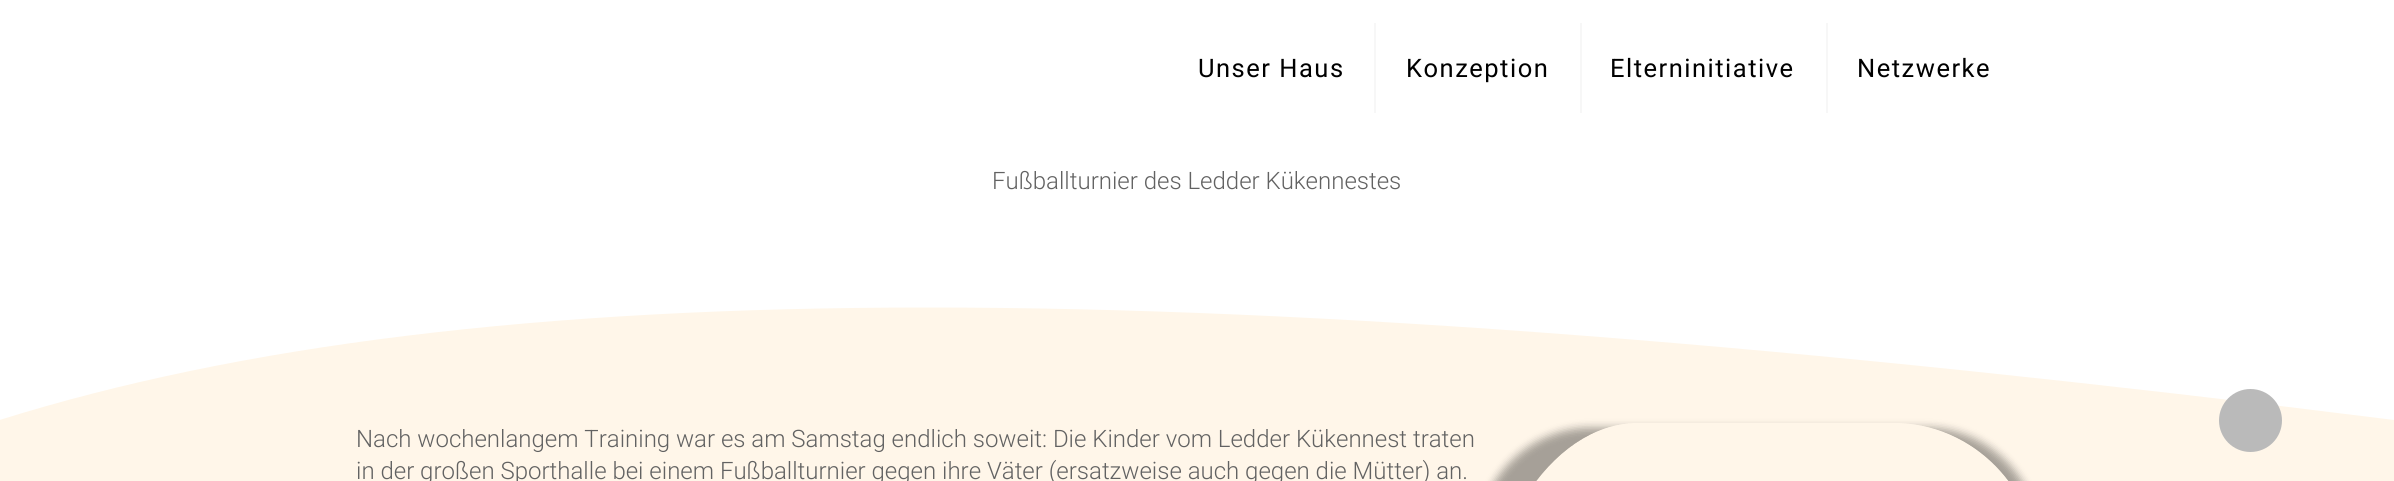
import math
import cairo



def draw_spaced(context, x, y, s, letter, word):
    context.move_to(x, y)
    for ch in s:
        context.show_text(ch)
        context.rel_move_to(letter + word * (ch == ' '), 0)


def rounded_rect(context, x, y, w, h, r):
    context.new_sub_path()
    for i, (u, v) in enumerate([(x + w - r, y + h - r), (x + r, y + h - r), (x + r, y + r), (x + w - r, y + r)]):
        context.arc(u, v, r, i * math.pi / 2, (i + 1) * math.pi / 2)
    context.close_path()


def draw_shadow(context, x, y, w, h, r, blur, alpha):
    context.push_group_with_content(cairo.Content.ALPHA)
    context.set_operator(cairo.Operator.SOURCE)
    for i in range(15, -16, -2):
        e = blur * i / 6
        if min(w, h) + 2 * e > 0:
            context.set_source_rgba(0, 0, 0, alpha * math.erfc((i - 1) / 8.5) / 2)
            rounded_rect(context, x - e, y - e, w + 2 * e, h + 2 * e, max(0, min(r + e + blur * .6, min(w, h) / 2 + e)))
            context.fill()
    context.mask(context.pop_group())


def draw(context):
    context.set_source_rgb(1, 1, 1)
    context.paint()
    context.set_source_rgb(247 / 255, 247 / 255, 247 / 255)
    context.rectangle(1374, 23, 2, 90)
    context.fill()
    context.rectangle(1580, 23, 2, 90)
    context.fill()
    context.rectangle(1826, 23, 2, 90)
    context.fill()
    context.set_source_rgb(1, 246 / 255, 233 / 255)
    context.new_path()
    context.move_to(0, 423)
    context.curve_to(479, 273, 1197, 273, 2394, 423)
    context.close_path()
    context.fill()
    context.save()
    context.rectangle(0, 273, 2394, 150)
    context.clip()
    context.new_path()
    context.move_to(0, 423)
    context.curve_to(479, 273, 1197, 273, 2394, 423)
    context.close_path()
    context.set_line_width(6)
    context.stroke()
    context.restore()
    context.rectangle(0, 423, 2394, 58)
    context.fill()
    context.save()
    context.set_fill_rule(cairo.FillRule.EVEN_ODD)
    context.new_path()
    context.move_to(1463, 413)
    context.line_to(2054, 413)
    context.line_to(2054, 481)
    context.line_to(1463, 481)
    context.close_path()
    context.move_to(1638.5, 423)
    context.line_to(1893.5, 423)
    context.curve_to(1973.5, 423, 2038.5, 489.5, 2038.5, 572)
    context.line_to(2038.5, 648.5)
    context.curve_to(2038.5, 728.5, 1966.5, 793.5, 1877.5, 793.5)
    context.line_to(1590.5, 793.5)
    context.curve_to(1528, 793.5, 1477.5, 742, 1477.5, 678.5)
    context.curve_to(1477.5, 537.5, 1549.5, 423, 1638.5, 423)
    context.close_path()
    context.clip()
    context.set_source_rgb(0, 0, 0)
    draw_shadow(context, 1478, 428, 561, 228, 161, 4.5, 0.23)
    draw_shadow(context, 1478, 428, 561, 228, 161, 4.5, 0.16)
    context.restore()
    context.set_source_rgb(186 / 255, 186 / 255, 186 / 255)
    context.arc(2250.5, 420.5, 31.5, 0, 2 * math.pi)
    context.fill()
    context.select_font_face("Roboto")
    context.set_font_size(25.5)
    context.set_source_rgb(0, 0, 0)
    draw_spaced(context, 1198, 77, "Unser Haus", 1.5, 0)
    draw_spaced(context, 1406, 77, "Konzeption", 1.5, 0)
    draw_spaced(context, 1610, 77, "Elterninitiative", 1.5, 0)
    draw_spaced(context, 1857, 77, "Netzwerke", 1.5, 0)
    context.select_font_face("Roboto Light")
    context.set_font_size(24)
    context.set_source_rgb(98 / 255, 98 / 255, 98 / 255)
    context.move_to(992, 189)
    context.show_text("Fußballturnier des Ledder Kükennestes")
    context.move_to(356, 447)
    context.show_text("Nach wochenlangem Training war es am Samstag endlich soweit: Die Kinder vom Ledder Kükennest traten")
    context.move_to(356, 479)
    context.show_text("in der großen Sporthalle bei einem Fußballturnier gegen ihre Väter (ersatzweise auch gegen die Mütter) an.")


surface = cairo.ImageSurface(cairo.Format.RGB24, 2394, 481)
context = cairo.Context(surface)
options = cairo.FontOptions()
options.set_hint_metrics(cairo.HintMetrics.OFF)
options.set_hint_style(cairo.HintStyle.NONE)
context.set_font_options(options)
context.set_miter_limit(4)
draw(context)
surface.write_to_png("out.png")
